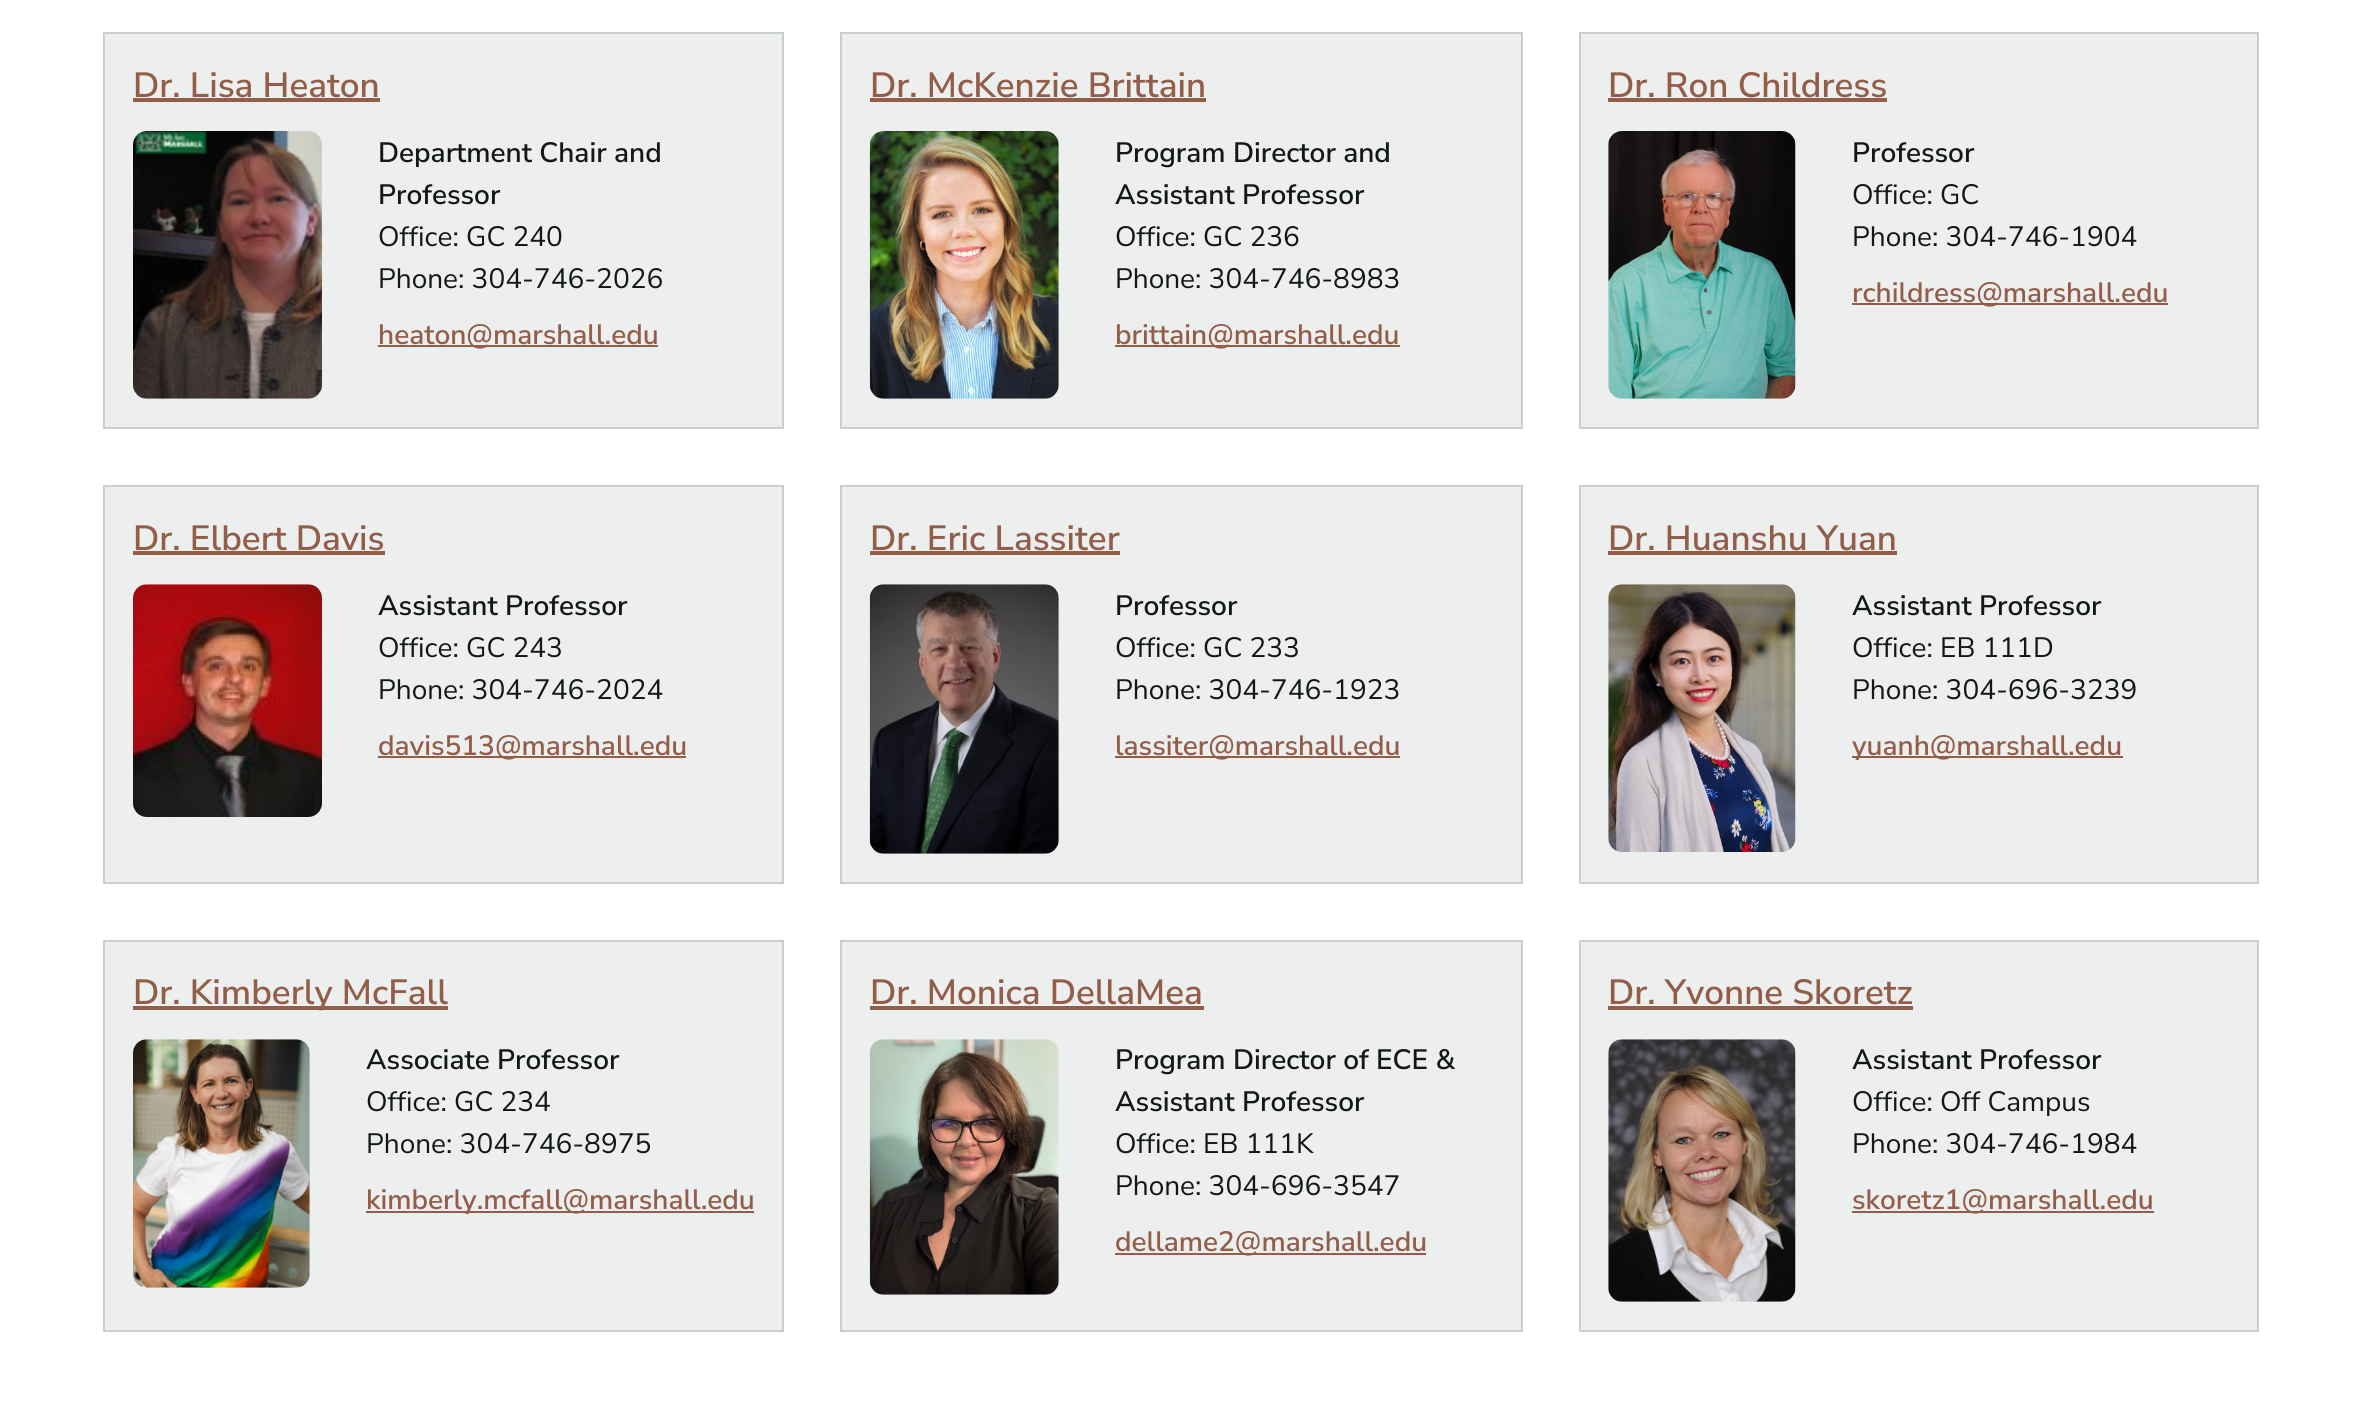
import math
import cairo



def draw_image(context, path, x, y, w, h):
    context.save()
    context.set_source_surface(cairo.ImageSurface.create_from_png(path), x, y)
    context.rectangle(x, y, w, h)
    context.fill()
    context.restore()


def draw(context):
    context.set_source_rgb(1, 1, 1)
    context.paint()
    context.set_source_rgb(237 / 255, 238 / 255, 238 / 255)
    context.rectangle(104, 33, 679, 395)
    context.fill_preserve()
    context.set_source_rgb(203 / 255, 206 / 255, 206 / 255)
    context.stroke()
    context.set_source_rgb(146 / 255, 93 / 255, 73 / 255)
    context.rectangle(133, 98, 247, 4)
    context.fill()
    draw_image(context, "images/1.png", 133, 131, 189, 268)
    context.rectangle(378, 345, 280, 2)
    context.fill()
    context.set_source_rgb(237 / 255, 238 / 255, 238 / 255)
    context.rectangle(841, 33, 681, 395)
    context.fill_preserve()
    context.set_source_rgb(203 / 255, 206 / 255, 206 / 255)
    context.stroke()
    context.set_source_rgb(146 / 255, 93 / 255, 73 / 255)
    context.rectangle(870, 98, 336, 4)
    context.fill()
    draw_image(context, "images/2.png", 869, 131, 190, 268)
    context.rectangle(1115, 345, 285, 2)
    context.fill()
    context.set_source_rgb(237 / 255, 238 / 255, 238 / 255)
    context.rectangle(1580, 33, 678, 395)
    context.fill_preserve()
    context.set_source_rgb(203 / 255, 206 / 255, 206 / 255)
    context.stroke()
    context.set_source_rgb(146 / 255, 93 / 255, 73 / 255)
    context.rectangle(1608, 98, 279, 4)
    context.fill()
    draw_image(context, "images/3.png", 1608, 131, 188, 268)
    context.rectangle(1852, 303, 316, 2)
    context.fill()
    context.set_source_rgb(237 / 255, 238 / 255, 238 / 255)
    context.rectangle(104, 486, 679, 397)
    context.fill_preserve()
    context.set_source_rgb(203 / 255, 206 / 255, 206 / 255)
    context.stroke()
    context.set_source_rgb(146 / 255, 93 / 255, 73 / 255)
    context.rectangle(133, 551, 252, 4)
    context.fill()
    draw_image(context, "images/4.png", 133, 584, 189, 233)
    context.rectangle(378, 756, 308, 2)
    context.fill()
    context.set_source_rgb(237 / 255, 238 / 255, 238 / 255)
    context.rectangle(841, 486, 681, 397)
    context.fill_preserve()
    context.set_source_rgb(203 / 255, 206 / 255, 206 / 255)
    context.stroke()
    context.set_source_rgb(146 / 255, 93 / 255, 73 / 255)
    context.rectangle(870, 551, 250, 4)
    context.fill()
    draw_image(context, "images/5.png", 869, 584, 190, 270)
    context.rectangle(1115, 756, 285, 2)
    context.fill()
    context.set_source_rgb(237 / 255, 238 / 255, 238 / 255)
    context.rectangle(1580, 486, 678, 397)
    context.fill_preserve()
    context.set_source_rgb(203 / 255, 206 / 255, 206 / 255)
    context.stroke()
    context.set_source_rgb(146 / 255, 93 / 255, 73 / 255)
    context.rectangle(1608, 551, 289, 4)
    context.fill()
    draw_image(context, "images/6.png", 1608, 584, 188, 268)
    context.rectangle(1852, 756, 271, 2)
    context.fill()
    context.set_source_rgb(237 / 255, 238 / 255, 238 / 255)
    context.rectangle(104, 941, 679, 390)
    context.fill_preserve()
    context.set_source_rgb(203 / 255, 206 / 255, 206 / 255)
    context.stroke()
    context.set_source_rgb(146 / 255, 93 / 255, 73 / 255)
    context.rectangle(133, 1006, 315, 4)
    context.fill()
    draw_image(context, "images/7.png", 133, 1039, 177, 249)
    context.rectangle(366, 1211, 388, 2)
    context.fill()
    context.set_source_rgb(237 / 255, 238 / 255, 238 / 255)
    context.rectangle(841, 941, 681, 390)
    context.fill_preserve()
    context.set_source_rgb(203 / 255, 206 / 255, 206 / 255)
    context.stroke()
    context.set_source_rgb(146 / 255, 93 / 255, 73 / 255)
    context.rectangle(870, 1006, 334, 4)
    context.fill()
    draw_image(context, "images/8.png", 869, 1039, 190, 256)
    context.rectangle(1115, 1253, 311, 2)
    context.fill()
    context.set_source_rgb(237 / 255, 238 / 255, 238 / 255)
    context.rectangle(1580, 941, 678, 390)
    context.fill_preserve()
    context.set_source_rgb(203 / 255, 206 / 255, 206 / 255)
    context.stroke()
    context.set_source_rgb(146 / 255, 93 / 255, 73 / 255)
    context.rectangle(1608, 1006, 305, 4)
    context.fill()
    draw_image(context, "images/9.png", 1608, 1039, 188, 263)
    context.rectangle(1852, 1211, 302, 2)
    context.fill()
    context.select_font_face("Nunito Sans SemiBold")
    context.set_font_size(35)
    context.move_to(133, 97)
    context.show_text("Dr. Lisa Heaton")
    context.set_font_size(28)
    context.set_source_rgb(19 / 255, 23 / 255, 22 / 255)
    context.move_to(378, 162)
    context.show_text("Department Chair and")
    context.move_to(378, 204)
    context.show_text("Professor")
    context.select_font_face("Nunito Sans")
    context.move_to(378, 246)
    context.show_text("Office: GC 240")
    context.move_to(378, 288)
    context.show_text("Phone: 304-746-2026")
    context.select_font_face("Nunito Sans SemiBold")
    context.set_source_rgb(146 / 255, 93 / 255, 73 / 255)
    context.move_to(378, 344)
    context.show_text("heaton@marshall.edu")
    context.set_font_size(35)
    context.move_to(870, 97)
    context.show_text("Dr. McKenzie Brittain")
    context.set_font_size(28)
    context.set_source_rgb(19 / 255, 23 / 255, 22 / 255)
    context.move_to(1115, 162)
    context.show_text("Program Director and")
    context.move_to(1115, 204)
    context.show_text("Assistant Professor")
    context.select_font_face("Nunito Sans")
    context.move_to(1115, 246)
    context.show_text("Office: GC 236")
    context.move_to(1115, 288)
    context.show_text("Phone: 304-746-8983")
    context.select_font_face("Nunito Sans SemiBold")
    context.set_source_rgb(146 / 255, 93 / 255, 73 / 255)
    context.move_to(1115, 344)
    context.show_text("brittain@marshall.edu")
    context.set_font_size(35)
    context.move_to(1608, 97)
    context.show_text("Dr. Ron Childress")
    context.set_font_size(28)
    context.set_source_rgb(19 / 255, 23 / 255, 22 / 255)
    context.move_to(1852, 162)
    context.show_text("Professor")
    context.select_font_face("Nunito Sans")
    context.move_to(1852, 204)
    context.show_text("Office: GC")
    context.move_to(1852, 246)
    context.show_text("Phone: 304-746-1904")
    context.select_font_face("Nunito Sans SemiBold")
    context.set_source_rgb(146 / 255, 93 / 255, 73 / 255)
    context.move_to(1852, 302)
    context.show_text("rchildress@marshall.edu")
    context.set_font_size(35)
    context.move_to(133, 550)
    context.show_text("Dr. Elbert Davis")
    context.set_font_size(28)
    context.set_source_rgb(19 / 255, 23 / 255, 22 / 255)
    context.move_to(378, 615)
    context.show_text("Assistant Professor")
    context.select_font_face("Nunito Sans")
    context.move_to(378, 657)
    context.show_text("Office: GC 243")
    context.move_to(378, 699)
    context.show_text("Phone: 304-746-2024")
    context.select_font_face("Nunito Sans SemiBold")
    context.set_source_rgb(146 / 255, 93 / 255, 73 / 255)
    context.move_to(378, 755)
    context.show_text("davis513@marshall.edu")
    context.set_font_size(35)
    context.move_to(870, 550)
    context.show_text("Dr. Eric Lassiter")
    context.set_font_size(28)
    context.set_source_rgb(19 / 255, 23 / 255, 22 / 255)
    context.move_to(1115, 615)
    context.show_text("Professor")
    context.select_font_face("Nunito Sans")
    context.move_to(1115, 657)
    context.show_text("Office: GC 233")
    context.move_to(1115, 699)
    context.show_text("Phone: 304-746-1923")
    context.select_font_face("Nunito Sans SemiBold")
    context.set_source_rgb(146 / 255, 93 / 255, 73 / 255)
    context.move_to(1115, 755)
    context.show_text("lassiter@marshall.edu")
    context.set_font_size(35)
    context.move_to(1608, 550)
    context.show_text("Dr. Huanshu Yuan")
    context.set_font_size(28)
    context.set_source_rgb(19 / 255, 23 / 255, 22 / 255)
    context.move_to(1852, 615)
    context.show_text("Assistant Professor")
    context.select_font_face("Nunito Sans")
    context.move_to(1852, 657)
    context.show_text("Office: EB 111D")
    context.move_to(1852, 699)
    context.show_text("Phone: 304-696-3239")
    context.select_font_face("Nunito Sans SemiBold")
    context.set_source_rgb(146 / 255, 93 / 255, 73 / 255)
    context.move_to(1852, 755)
    context.show_text("yuanh@marshall.edu")
    context.set_font_size(35)
    context.move_to(133, 1004)
    context.show_text("Dr. Kimberly McFall")
    context.set_font_size(28)
    context.set_source_rgb(19 / 255, 23 / 255, 22 / 255)
    context.move_to(366, 1069)
    context.show_text("Associate Professor")
    context.select_font_face("Nunito Sans")
    context.move_to(366, 1111)
    context.show_text("Office: GC 234")
    context.move_to(366, 1153)
    context.show_text("Phone: 304-746-8975")
    context.select_font_face("Nunito Sans SemiBold")
    context.set_source_rgb(146 / 255, 93 / 255, 73 / 255)
    context.move_to(366, 1209)
    context.show_text("kimberly.mcfall@marshall.edu")
    context.set_font_size(35)
    context.move_to(870, 1004)
    context.show_text("Dr. Monica DellaMea")
    context.set_font_size(28)
    context.set_source_rgb(19 / 255, 23 / 255, 22 / 255)
    context.move_to(1115, 1069)
    context.show_text("Program Director of ECE &")
    context.move_to(1115, 1111)
    context.show_text("Assistant Professor")
    context.select_font_face("Nunito Sans")
    context.move_to(1115, 1153)
    context.show_text("Office: EB 111K")
    context.move_to(1115, 1195)
    context.show_text("Phone: 304-696-3547")
    context.select_font_face("Nunito Sans SemiBold")
    context.set_source_rgb(146 / 255, 93 / 255, 73 / 255)
    context.move_to(1115, 1251)
    context.show_text("dellame2@marshall.edu")
    context.set_font_size(35)
    context.move_to(1608, 1004)
    context.show_text("Dr. Yvonne Skoretz")
    context.set_font_size(28)
    context.set_source_rgb(19 / 255, 23 / 255, 22 / 255)
    context.move_to(1852, 1069)
    context.show_text("Assistant Professor")
    context.select_font_face("Nunito Sans")
    context.move_to(1852, 1111)
    context.show_text("Office: Off Campus")
    context.move_to(1852, 1153)
    context.show_text("Phone: 304-746-1984")
    context.select_font_face("Nunito Sans SemiBold")
    context.set_source_rgb(146 / 255, 93 / 255, 73 / 255)
    context.move_to(1852, 1209)
    context.show_text("skoretz1@marshall.edu")


surface = cairo.ImageSurface(cairo.Format.RGB24, 2362, 1412)
context = cairo.Context(surface)
options = cairo.FontOptions()
options.set_hint_metrics(cairo.HintMetrics.OFF)
options.set_hint_style(cairo.HintStyle.NONE)
context.set_font_options(options)
context.set_miter_limit(4)
draw(context)
surface.write_to_png("out.png")
